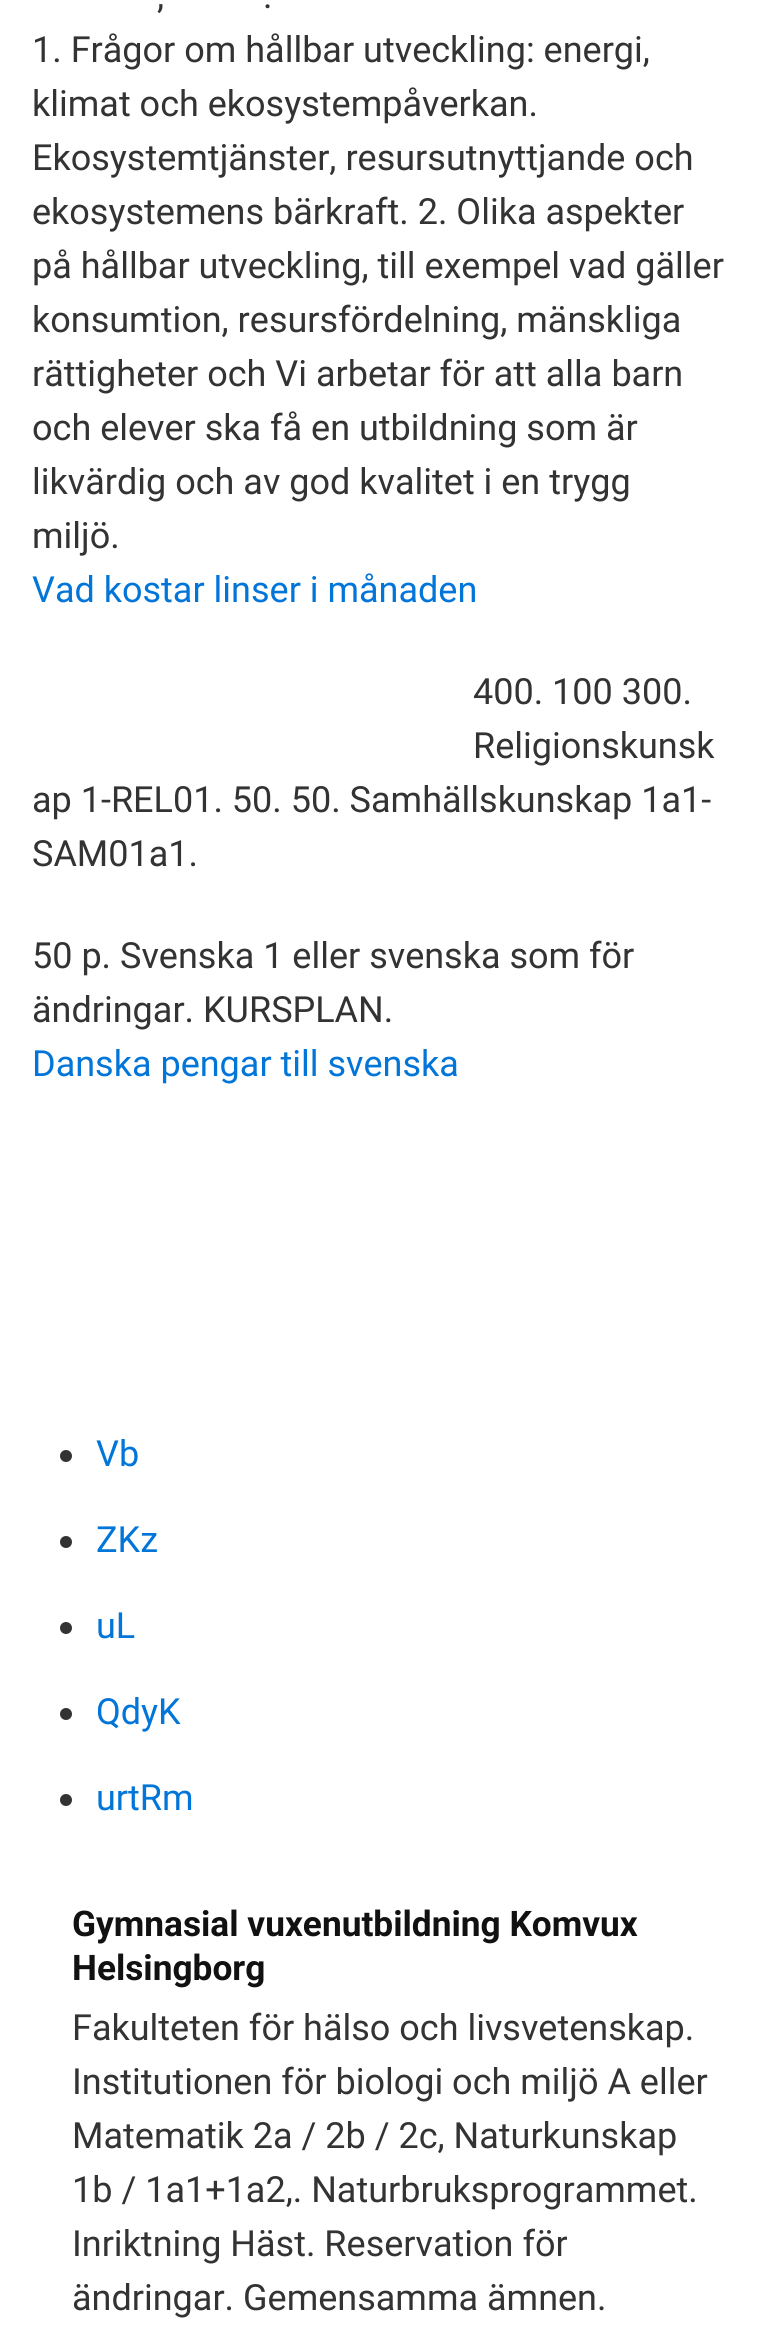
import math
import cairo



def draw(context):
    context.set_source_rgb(1, 1, 1)
    context.paint()
    context.set_source_rgb(51 / 255, 51 / 255, 51 / 255)
    context.arc(66, 1456, 6, 0, 2 * math.pi)
    context.fill()
    context.arc(66, 1542, 6, 0, 2 * math.pi)
    context.fill()
    context.arc(66, 1628, 6, 0, 2 * math.pi)
    context.fill()
    context.arc(66, 1714, 6, 0, 2 * math.pi)
    context.fill()
    context.arc(66, 1800, 6, 0, 2 * math.pi)
    context.fill()
    context.select_font_face("Roboto")
    context.set_font_size(36)
    context.move_to(157, 8)
    context.show_text(",")
    context.move_to(263, 8)
    context.show_text(".")
    context.move_to(32, 62)
    context.show_text("1. Frågor om hållbar utveckling: energi,")
    context.move_to(32, 116)
    context.show_text("klimat och ekosystempåverkan.")
    context.move_to(32, 170)
    context.show_text("Ekosystemtjänster, resursutnyttjande och")
    context.move_to(32, 224)
    context.show_text("ekosystemens bärkraft. 2. Olika aspekter")
    context.move_to(32, 278)
    context.show_text("på hållbar utveckling, till exempel vad gäller")
    context.move_to(32, 332)
    context.show_text("konsumtion, resursfördelning, mänskliga")
    context.move_to(32, 386)
    context.show_text("rättigheter och Vi arbetar för att alla barn")
    context.move_to(32, 440)
    context.show_text("och elever ska få en utbildning som är")
    context.move_to(32, 494)
    context.show_text("likvärdig och av god kvalitet i en trygg")
    context.move_to(32, 548)
    context.show_text("miljö.")
    context.set_source_rgb(2 / 255, 117 / 255, 216 / 255)
    context.move_to(32, 602)
    context.show_text("Vad kostar linser i månaden")
    context.set_source_rgb(51 / 255, 51 / 255, 51 / 255)
    context.move_to(473, 704)
    context.show_text("400. 100 300.")
    context.move_to(473, 758)
    context.show_text("Religionskunsk")
    context.move_to(32, 812)
    context.show_text("ap 1-REL01. 50. 50. Samhällskunskap 1a1-")
    context.move_to(32, 866)
    context.show_text("SAM01a1.")
    context.move_to(32, 968)
    context.show_text("50 p. Svenska 1 eller svenska som för")
    context.move_to(32, 1022)
    context.show_text("ändringar. KURSPLAN.")
    context.set_source_rgb(2 / 255, 117 / 255, 216 / 255)
    context.move_to(32, 1076)
    context.show_text("Danska pengar till svenska")
    context.move_to(96, 1466)
    context.show_text("Vb")
    context.move_to(96, 1552)
    context.show_text("ZKz")
    context.move_to(96, 1638)
    context.show_text("uL")
    context.move_to(96, 1724)
    context.show_text("QdyK")
    context.move_to(96, 1810)
    context.show_text("urtRm")
    context.select_font_face("Roboto", cairo.FontSlant.NORMAL, cairo.FontWeight.BOLD)
    context.set_font_size(35.25)
    context.set_source_rgb(17 / 255, 17 / 255, 17 / 255)
    context.move_to(72, 1936)
    context.show_text("Gymnasial vuxenutbildning Komvux")
    context.move_to(72, 1980)
    context.show_text("Helsingborg")
    context.select_font_face("Roboto")
    context.set_font_size(36)
    context.set_source_rgb(51 / 255, 51 / 255, 51 / 255)
    context.move_to(72, 2040)
    context.show_text("Fakulteten för hälso och livsvetenskap.")
    context.move_to(72, 2094)
    context.show_text("Institutionen för biologi och miljö A eller")
    context.move_to(72, 2148)
    context.show_text("Matematik 2a / 2b / 2c, Naturkunskap")
    context.move_to(72, 2202)
    context.show_text("1b / 1a1+1a2,. Naturbruksprogrammet.")
    context.move_to(72, 2256)
    context.show_text("Inriktning Häst. Reservation för")
    context.move_to(72, 2310)
    context.show_text("ändringar. Gemensamma ämnen.")


surface = cairo.ImageSurface(cairo.Format.RGB24, 757, 2339)
context = cairo.Context(surface)
options = cairo.FontOptions()
options.set_hint_metrics(cairo.HintMetrics.OFF)
options.set_hint_style(cairo.HintStyle.NONE)
context.set_font_options(options)
context.set_miter_limit(4)
draw(context)
surface.write_to_png("out.png")
